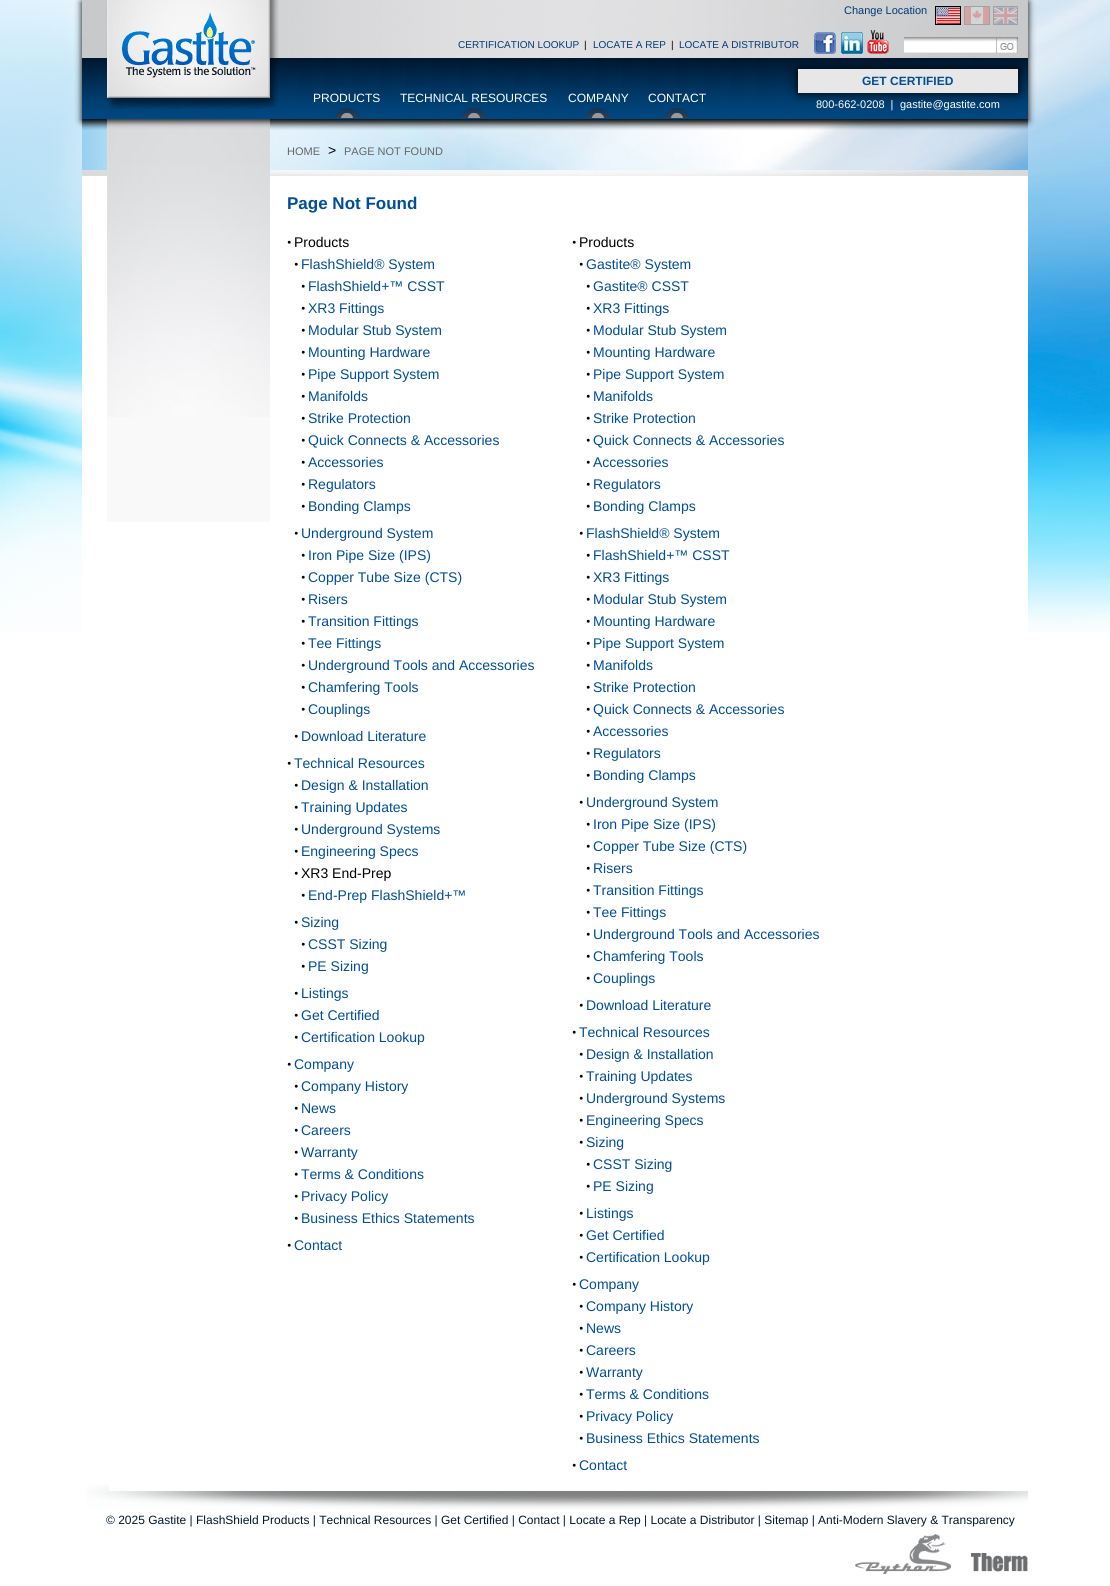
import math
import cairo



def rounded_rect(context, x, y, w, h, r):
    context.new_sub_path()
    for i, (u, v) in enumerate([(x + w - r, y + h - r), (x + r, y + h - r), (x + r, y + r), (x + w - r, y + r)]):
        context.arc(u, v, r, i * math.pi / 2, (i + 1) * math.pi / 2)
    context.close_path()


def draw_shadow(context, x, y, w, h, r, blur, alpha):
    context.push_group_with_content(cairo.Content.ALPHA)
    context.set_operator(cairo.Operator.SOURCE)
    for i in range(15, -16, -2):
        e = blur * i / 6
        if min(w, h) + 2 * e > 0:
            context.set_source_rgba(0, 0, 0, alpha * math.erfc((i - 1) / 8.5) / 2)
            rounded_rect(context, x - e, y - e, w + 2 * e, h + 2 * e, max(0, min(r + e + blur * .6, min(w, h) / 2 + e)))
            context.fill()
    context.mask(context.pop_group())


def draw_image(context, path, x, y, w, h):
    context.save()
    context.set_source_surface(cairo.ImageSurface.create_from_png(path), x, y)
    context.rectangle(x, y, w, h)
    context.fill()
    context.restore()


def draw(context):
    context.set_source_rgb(1, 1, 1)
    context.paint()
    draw_image(context, "images/1.png", 0, 0, 1110, 632)
    draw_image(context, "images/15.png", 82, 119, 946, 57)
    context.set_source_rgb(1, 1, 1)
    context.rectangle(82, 176, 946, 456)
    context.fill()
    draw_image(context, "images/16.png", 107, 119, 163, 298)
    context.set_source_rgb(0, 0, 0)
    draw_shadow(context, 82, 2, 946, 119, 0, 3.5, 1)
    draw_image(context, "images/2.png", 82, 58, 946, 61)
    draw_image(context, "images/4.png", 82, 0, 946, 58)
    draw_image(context, "images/3.png", 106, 0, 173, 109)
    context.rectangle(935.5, 6.5, 25, 18)
    context.set_source_rgb(0, 0, 0)
    context.set_line_width(1)
    context.stroke()
    draw_image(context, "images/5.png", 936, 7, 24, 17)
    context.rectangle(964.5, 6.5, 25, 18)
    context.set_source_rgb(161 / 255, 162 / 255, 163 / 255)
    context.stroke()
    draw_image(context, "images/6.png", 965, 7, 24, 17)
    context.rectangle(993.5, 6.5, 24, 18)
    context.set_source_rgb(160 / 255, 161 / 255, 163 / 255)
    context.stroke()
    draw_image(context, "images/7.png", 994, 7, 23, 17)
    draw_image(context, "images/8.png", 814, 32, 22, 22)
    draw_image(context, "images/9.png", 841, 32, 22, 22)
    draw_image(context, "images/10.png", 867, 30, 22, 24)
    draw_image(context, "images/11.png", 904, 37, 114, 16)
    draw_image(context, "images/12.png", 335, 108, 24, 10)
    draw_image(context, "images/13.png", 462, 108, 24, 10)
    draw_image(context, "images/14.png", 586, 108, 24, 10)
    draw_image(context, "images/14.png", 665, 108, 24, 10)
    context.set_source_rgb(0, 0, 0)
    draw_shadow(context, 798, 69, 220, 24, 0, 5, 1)
    context.set_source_rgb(231 / 255, 231 / 255, 231 / 255)
    context.rectangle(798, 69, 220, 24)
    context.fill()
    context.set_source_rgb(249 / 255, 249 / 255, 249 / 255)
    context.rectangle(107, 417, 163, 105)
    context.fill()
    draw_image(context, "images/17.png", 287, 240, 4, 4)
    draw_image(context, "images/17.png", 294, 262, 4, 4)
    draw_image(context, "images/17.png", 301, 284, 4, 4)
    draw_image(context, "images/17.png", 301, 306, 4, 4)
    draw_image(context, "images/17.png", 301, 328, 4, 4)
    draw_image(context, "images/17.png", 301, 350, 4, 4)
    draw_image(context, "images/17.png", 301, 372, 4, 4)
    draw_image(context, "images/17.png", 301, 394, 4, 4)
    draw_image(context, "images/17.png", 301, 416, 4, 4)
    draw_image(context, "images/17.png", 301, 438, 4, 4)
    draw_image(context, "images/17.png", 301, 460, 4, 4)
    draw_image(context, "images/17.png", 301, 482, 4, 4)
    draw_image(context, "images/17.png", 301, 504, 4, 4)
    draw_image(context, "images/17.png", 294, 531, 4, 4)
    draw_image(context, "images/17.png", 301, 553, 4, 4)
    draw_image(context, "images/17.png", 301, 575, 4, 4)
    draw_image(context, "images/17.png", 301, 597, 4, 4)
    draw_image(context, "images/17.png", 301, 619, 4, 4)
    draw_image(context, "images/17.png", 301, 641, 4, 4)
    draw_image(context, "images/17.png", 301, 663, 4, 4)
    draw_image(context, "images/17.png", 301, 685, 4, 4)
    draw_image(context, "images/17.png", 301, 707, 4, 4)
    draw_image(context, "images/17.png", 294, 734, 4, 4)
    draw_image(context, "images/17.png", 287, 761, 4, 4)
    draw_image(context, "images/17.png", 294, 783, 4, 4)
    draw_image(context, "images/17.png", 294, 805, 4, 4)
    draw_image(context, "images/17.png", 294, 827, 4, 4)
    draw_image(context, "images/17.png", 294, 849, 4, 4)
    draw_image(context, "images/17.png", 294, 871, 4, 4)
    draw_image(context, "images/17.png", 301, 893, 4, 4)
    draw_image(context, "images/17.png", 294, 920, 4, 4)
    draw_image(context, "images/17.png", 301, 942, 4, 4)
    draw_image(context, "images/17.png", 301, 964, 4, 4)
    draw_image(context, "images/17.png", 294, 991, 4, 4)
    draw_image(context, "images/17.png", 294, 1013, 4, 4)
    draw_image(context, "images/17.png", 294, 1035, 4, 4)
    draw_image(context, "images/17.png", 287, 1062, 4, 4)
    draw_image(context, "images/17.png", 294, 1084, 4, 4)
    draw_image(context, "images/17.png", 294, 1106, 4, 4)
    draw_image(context, "images/17.png", 294, 1128, 4, 4)
    draw_image(context, "images/17.png", 294, 1150, 4, 4)
    draw_image(context, "images/17.png", 294, 1172, 4, 4)
    draw_image(context, "images/17.png", 294, 1194, 4, 4)
    draw_image(context, "images/17.png", 294, 1216, 4, 4)
    draw_image(context, "images/17.png", 287, 1243, 4, 4)
    draw_image(context, "images/17.png", 572, 240, 4, 4)
    draw_image(context, "images/17.png", 579, 262, 4, 4)
    draw_image(context, "images/17.png", 586, 284, 4, 4)
    draw_image(context, "images/17.png", 586, 306, 4, 4)
    draw_image(context, "images/17.png", 586, 328, 4, 4)
    draw_image(context, "images/17.png", 586, 350, 4, 4)
    draw_image(context, "images/17.png", 586, 372, 4, 4)
    draw_image(context, "images/17.png", 586, 394, 4, 4)
    draw_image(context, "images/17.png", 586, 416, 4, 4)
    draw_image(context, "images/17.png", 586, 438, 4, 4)
    draw_image(context, "images/17.png", 586, 460, 4, 4)
    draw_image(context, "images/17.png", 586, 482, 4, 4)
    draw_image(context, "images/17.png", 586, 504, 4, 4)
    draw_image(context, "images/17.png", 579, 531, 4, 4)
    draw_image(context, "images/17.png", 586, 553, 4, 4)
    draw_image(context, "images/17.png", 586, 575, 4, 4)
    draw_image(context, "images/17.png", 586, 597, 4, 4)
    draw_image(context, "images/17.png", 586, 619, 4, 4)
    draw_image(context, "images/17.png", 586, 641, 4, 4)
    draw_image(context, "images/17.png", 586, 663, 4, 4)
    draw_image(context, "images/17.png", 586, 685, 4, 4)
    draw_image(context, "images/17.png", 586, 707, 4, 4)
    draw_image(context, "images/17.png", 586, 729, 4, 4)
    draw_image(context, "images/17.png", 586, 751, 4, 4)
    draw_image(context, "images/17.png", 586, 773, 4, 4)
    draw_image(context, "images/17.png", 579, 800, 4, 4)
    draw_image(context, "images/17.png", 586, 822, 4, 4)
    draw_image(context, "images/17.png", 586, 844, 4, 4)
    draw_image(context, "images/17.png", 586, 866, 4, 4)
    draw_image(context, "images/17.png", 586, 888, 4, 4)
    draw_image(context, "images/17.png", 586, 910, 4, 4)
    draw_image(context, "images/17.png", 586, 932, 4, 4)
    draw_image(context, "images/17.png", 586, 954, 4, 4)
    draw_image(context, "images/17.png", 586, 976, 4, 4)
    draw_image(context, "images/17.png", 579, 1003, 4, 4)
    draw_image(context, "images/17.png", 572, 1030, 4, 4)
    draw_image(context, "images/17.png", 579, 1052, 4, 4)
    draw_image(context, "images/17.png", 579, 1074, 4, 4)
    draw_image(context, "images/17.png", 579, 1096, 4, 4)
    draw_image(context, "images/17.png", 579, 1118, 4, 4)
    draw_image(context, "images/17.png", 579, 1140, 4, 4)
    draw_image(context, "images/17.png", 586, 1162, 4, 4)
    draw_image(context, "images/17.png", 586, 1184, 4, 4)
    draw_image(context, "images/17.png", 579, 1211, 4, 4)
    draw_image(context, "images/17.png", 579, 1233, 4, 4)
    draw_image(context, "images/17.png", 579, 1255, 4, 4)
    draw_image(context, "images/17.png", 572, 1282, 4, 4)
    draw_image(context, "images/17.png", 579, 1304, 4, 4)
    draw_image(context, "images/17.png", 579, 1326, 4, 4)
    draw_image(context, "images/17.png", 579, 1348, 4, 4)
    draw_image(context, "images/17.png", 579, 1370, 4, 4)
    draw_image(context, "images/17.png", 579, 1392, 4, 4)
    draw_image(context, "images/17.png", 579, 1414, 4, 4)
    draw_image(context, "images/17.png", 579, 1436, 4, 4)
    draw_image(context, "images/17.png", 572, 1463, 4, 4)
    draw_image(context, "images/18.png", 86, 1484, 942, 26)
    draw_image(context, "images/19.png", 855, 1534, 96, 40)
    draw_image(context, "images/20.png", 971, 1553, 57, 19)
    context.select_font_face("Liberation Sans")
    context.set_font_size(11)
    context.set_source_rgb(0, 58 / 255, 115 / 255)
    context.move_to(844, 14)
    context.show_text("Change Location")
    context.set_font_size(10)
    context.move_to(458, 48)
    context.show_text("CERTIFICATION LOOKUP")
    context.set_source_rgb(0, 0, 0)
    context.move_to(584, 48)
    context.show_text("|")
    context.set_source_rgb(0, 58 / 255, 115 / 255)
    context.move_to(593, 48)
    context.show_text("LOCATE A REP")
    context.set_source_rgb(0, 0, 0)
    context.move_to(671, 48)
    context.show_text("|")
    context.set_source_rgb(0, 58 / 255, 115 / 255)
    context.move_to(679, 48)
    context.show_text("LOCATE A DISTRIBUTOR")
    context.set_font_size(12)
    context.set_source_rgb(1, 1, 1)
    context.move_to(313, 102)
    context.show_text("PRODUCTS")
    context.move_to(400, 102)
    context.show_text("TECHNICAL RESOURCES")
    context.move_to(568, 102)
    context.show_text("COMPANY")
    context.move_to(648, 102)
    context.show_text("CONTACT")
    context.select_font_face("Liberation Sans", cairo.FontSlant.NORMAL, cairo.FontWeight.BOLD)
    context.set_source_rgb(0, 77 / 255, 152 / 255)
    context.move_to(862, 85)
    context.show_text("GET CERTIFIED")
    context.select_font_face("Liberation Sans")
    context.set_font_size(11)
    context.set_source_rgb(1, 1, 1)
    context.move_to(816, 108)
    context.show_text("800-662-0208  |")
    context.move_to(900, 108)
    context.show_text("gastite@gastite.com")
    context.set_source_rgb(100 / 255, 101 / 255, 104 / 255)
    context.move_to(287, 155)
    context.show_text("HOME")
    context.set_font_size(14)
    context.set_source_rgb(0, 0, 0)
    context.move_to(328, 155)
    context.show_text(">")
    context.set_font_size(11)
    context.set_source_rgb(100 / 255, 101 / 255, 104 / 255)
    context.move_to(344, 155)
    context.show_text("PAGE NOT FOUND")
    context.select_font_face("Liberation Sans", cairo.FontSlant.NORMAL, cairo.FontWeight.BOLD)
    context.set_font_size(17)
    context.set_source_rgb(0, 77 / 255, 152 / 255)
    context.move_to(287, 209)
    context.show_text("Page Not Found")
    context.select_font_face("Liberation Sans")
    context.set_font_size(14)
    context.set_source_rgb(0, 0, 0)
    context.move_to(294, 247)
    context.show_text("Products")
    context.set_source_rgb(0, 77 / 255, 152 / 255)
    context.move_to(301, 269)
    context.show_text("FlashShield® System")
    context.move_to(308, 291)
    context.show_text("FlashShield+™ CSST")
    context.move_to(308, 313)
    context.show_text("XR3 Fittings")
    context.move_to(308, 335)
    context.show_text("Modular Stub System")
    context.move_to(308, 357)
    context.show_text("Mounting Hardware")
    context.move_to(308, 379)
    context.show_text("Pipe Support System")
    context.move_to(308, 401)
    context.show_text("Manifolds")
    context.move_to(308, 423)
    context.show_text("Strike Protection")
    context.move_to(308, 445)
    context.show_text("Quick Connects & Accessories")
    context.move_to(308, 467)
    context.show_text("Accessories")
    context.move_to(308, 489)
    context.show_text("Regulators")
    context.move_to(308, 511)
    context.show_text("Bonding Clamps")
    context.move_to(301, 538)
    context.show_text("Underground System")
    context.move_to(308, 560)
    context.show_text("Iron Pipe Size (IPS)")
    context.move_to(308, 582)
    context.show_text("Copper Tube Size (CTS)")
    context.move_to(308, 604)
    context.show_text("Risers")
    context.move_to(308, 626)
    context.show_text("Transition Fittings")
    context.move_to(308, 648)
    context.show_text("Tee Fittings")
    context.move_to(308, 670)
    context.show_text("Underground Tools and Accessories")
    context.move_to(308, 692)
    context.show_text("Chamfering Tools")
    context.move_to(308, 714)
    context.show_text("Couplings")
    context.move_to(301, 741)
    context.show_text("Download Literature")
    context.move_to(294, 768)
    context.show_text("Technical Resources")
    context.move_to(301, 790)
    context.show_text("Design & Installation")
    context.move_to(301, 812)
    context.show_text("Training Updates")
    context.move_to(301, 834)
    context.show_text("Underground Systems")
    context.move_to(301, 856)
    context.show_text("Engineering Specs")
    context.set_source_rgb(0, 0, 0)
    context.move_to(301, 878)
    context.show_text("XR3 End-Prep")
    context.set_source_rgb(0, 77 / 255, 152 / 255)
    context.move_to(308, 900)
    context.show_text("End-Prep FlashShield+™")
    context.move_to(301, 927)
    context.show_text("Sizing")
    context.move_to(308, 949)
    context.show_text("CSST Sizing")
    context.move_to(308, 971)
    context.show_text("PE Sizing")
    context.move_to(301, 998)
    context.show_text("Listings")
    context.move_to(301, 1020)
    context.show_text("Get Certified")
    context.move_to(301, 1042)
    context.show_text("Certification Lookup")
    context.move_to(294, 1069)
    context.show_text("Company")
    context.move_to(301, 1091)
    context.show_text("Company History")
    context.move_to(301, 1113)
    context.show_text("News")
    context.move_to(301, 1135)
    context.show_text("Careers")
    context.move_to(301, 1157)
    context.show_text("Warranty")
    context.move_to(301, 1179)
    context.show_text("Terms & Conditions")
    context.move_to(301, 1201)
    context.show_text("Privacy Policy")
    context.move_to(301, 1223)
    context.show_text("Business Ethics Statements")
    context.move_to(294, 1250)
    context.show_text("Contact")
    context.set_source_rgb(0, 0, 0)
    context.move_to(579, 247)
    context.show_text("Products")
    context.set_source_rgb(0, 77 / 255, 152 / 255)
    context.move_to(586, 269)
    context.show_text("Gastite® System")
    context.move_to(593, 291)
    context.show_text("Gastite® CSST")
    context.move_to(593, 313)
    context.show_text("XR3 Fittings")
    context.move_to(593, 335)
    context.show_text("Modular Stub System")
    context.move_to(593, 357)
    context.show_text("Mounting Hardware")
    context.move_to(593, 379)
    context.show_text("Pipe Support System")
    context.move_to(593, 401)
    context.show_text("Manifolds")
    context.move_to(593, 423)
    context.show_text("Strike Protection")
    context.move_to(593, 445)
    context.show_text("Quick Connects & Accessories")
    context.move_to(593, 467)
    context.show_text("Accessories")
    context.move_to(593, 489)
    context.show_text("Regulators")
    context.move_to(593, 511)
    context.show_text("Bonding Clamps")
    context.move_to(586, 538)
    context.show_text("FlashShield® System")
    context.move_to(593, 560)
    context.show_text("FlashShield+™ CSST")
    context.move_to(593, 582)
    context.show_text("XR3 Fittings")
    context.move_to(593, 604)
    context.show_text("Modular Stub System")
    context.move_to(593, 626)
    context.show_text("Mounting Hardware")
    context.move_to(593, 648)
    context.show_text("Pipe Support System")
    context.move_to(593, 670)
    context.show_text("Manifolds")
    context.move_to(593, 692)
    context.show_text("Strike Protection")
    context.move_to(593, 714)
    context.show_text("Quick Connects & Accessories")
    context.move_to(593, 736)
    context.show_text("Accessories")
    context.move_to(593, 758)
    context.show_text("Regulators")
    context.move_to(593, 780)
    context.show_text("Bonding Clamps")
    context.move_to(586, 807)
    context.show_text("Underground System")
    context.move_to(593, 829)
    context.show_text("Iron Pipe Size (IPS)")
    context.move_to(593, 851)
    context.show_text("Copper Tube Size (CTS)")
    context.move_to(593, 873)
    context.show_text("Risers")
    context.move_to(593, 895)
    context.show_text("Transition Fittings")
    context.move_to(593, 917)
    context.show_text("Tee Fittings")
    context.move_to(593, 939)
    context.show_text("Underground Tools and Accessories")
    context.move_to(593, 961)
    context.show_text("Chamfering Tools")
    context.move_to(593, 983)
    context.show_text("Couplings")
    context.move_to(586, 1010)
    context.show_text("Download Literature")
    context.move_to(579, 1037)
    context.show_text("Technical Resources")
    context.move_to(586, 1059)
    context.show_text("Design & Installation")
    context.move_to(586, 1081)
    context.show_text("Training Updates")
    context.move_to(586, 1103)
    context.show_text("Underground Systems")
    context.move_to(586, 1125)
    context.show_text("Engineering Specs")
    context.move_to(586, 1147)
    context.show_text("Sizing")
    context.move_to(593, 1169)
    context.show_text("CSST Sizing")
    context.move_to(593, 1191)
    context.show_text("PE Sizing")
    context.move_to(586, 1218)
    context.show_text("Listings")
    context.move_to(586, 1240)
    context.show_text("Get Certified")
    context.move_to(586, 1262)
    context.show_text("Certification Lookup")
    context.move_to(579, 1289)
    context.show_text("Company")
    context.move_to(586, 1311)
    context.show_text("Company History")
    context.move_to(586, 1333)
    context.show_text("News")
    context.move_to(586, 1355)
    context.show_text("Careers")
    context.move_to(586, 1377)
    context.show_text("Warranty")
    context.move_to(586, 1399)
    context.show_text("Terms & Conditions")
    context.move_to(586, 1421)
    context.show_text("Privacy Policy")
    context.move_to(586, 1443)
    context.show_text("Business Ethics Statements")
    context.move_to(579, 1470)
    context.show_text("Contact")
    context.set_font_size(12)
    context.set_source_rgb(0, 23 / 255, 44 / 255)
    context.move_to(106, 1524)
    context.show_text("© 2025 Gastite | FlashShield Products | Technical Resources | Get Certified | Contact | Locate a Rep | Locate a Distributor | Sitemap | Anti-Modern Slavery & Transparency")


surface = cairo.ImageSurface(cairo.Format.RGB24, 1110, 1586)
context = cairo.Context(surface)
options = cairo.FontOptions()
options.set_hint_metrics(cairo.HintMetrics.OFF)
options.set_hint_style(cairo.HintStyle.NONE)
context.set_font_options(options)
context.set_miter_limit(4)
draw(context)
surface.write_to_png("out.png")
